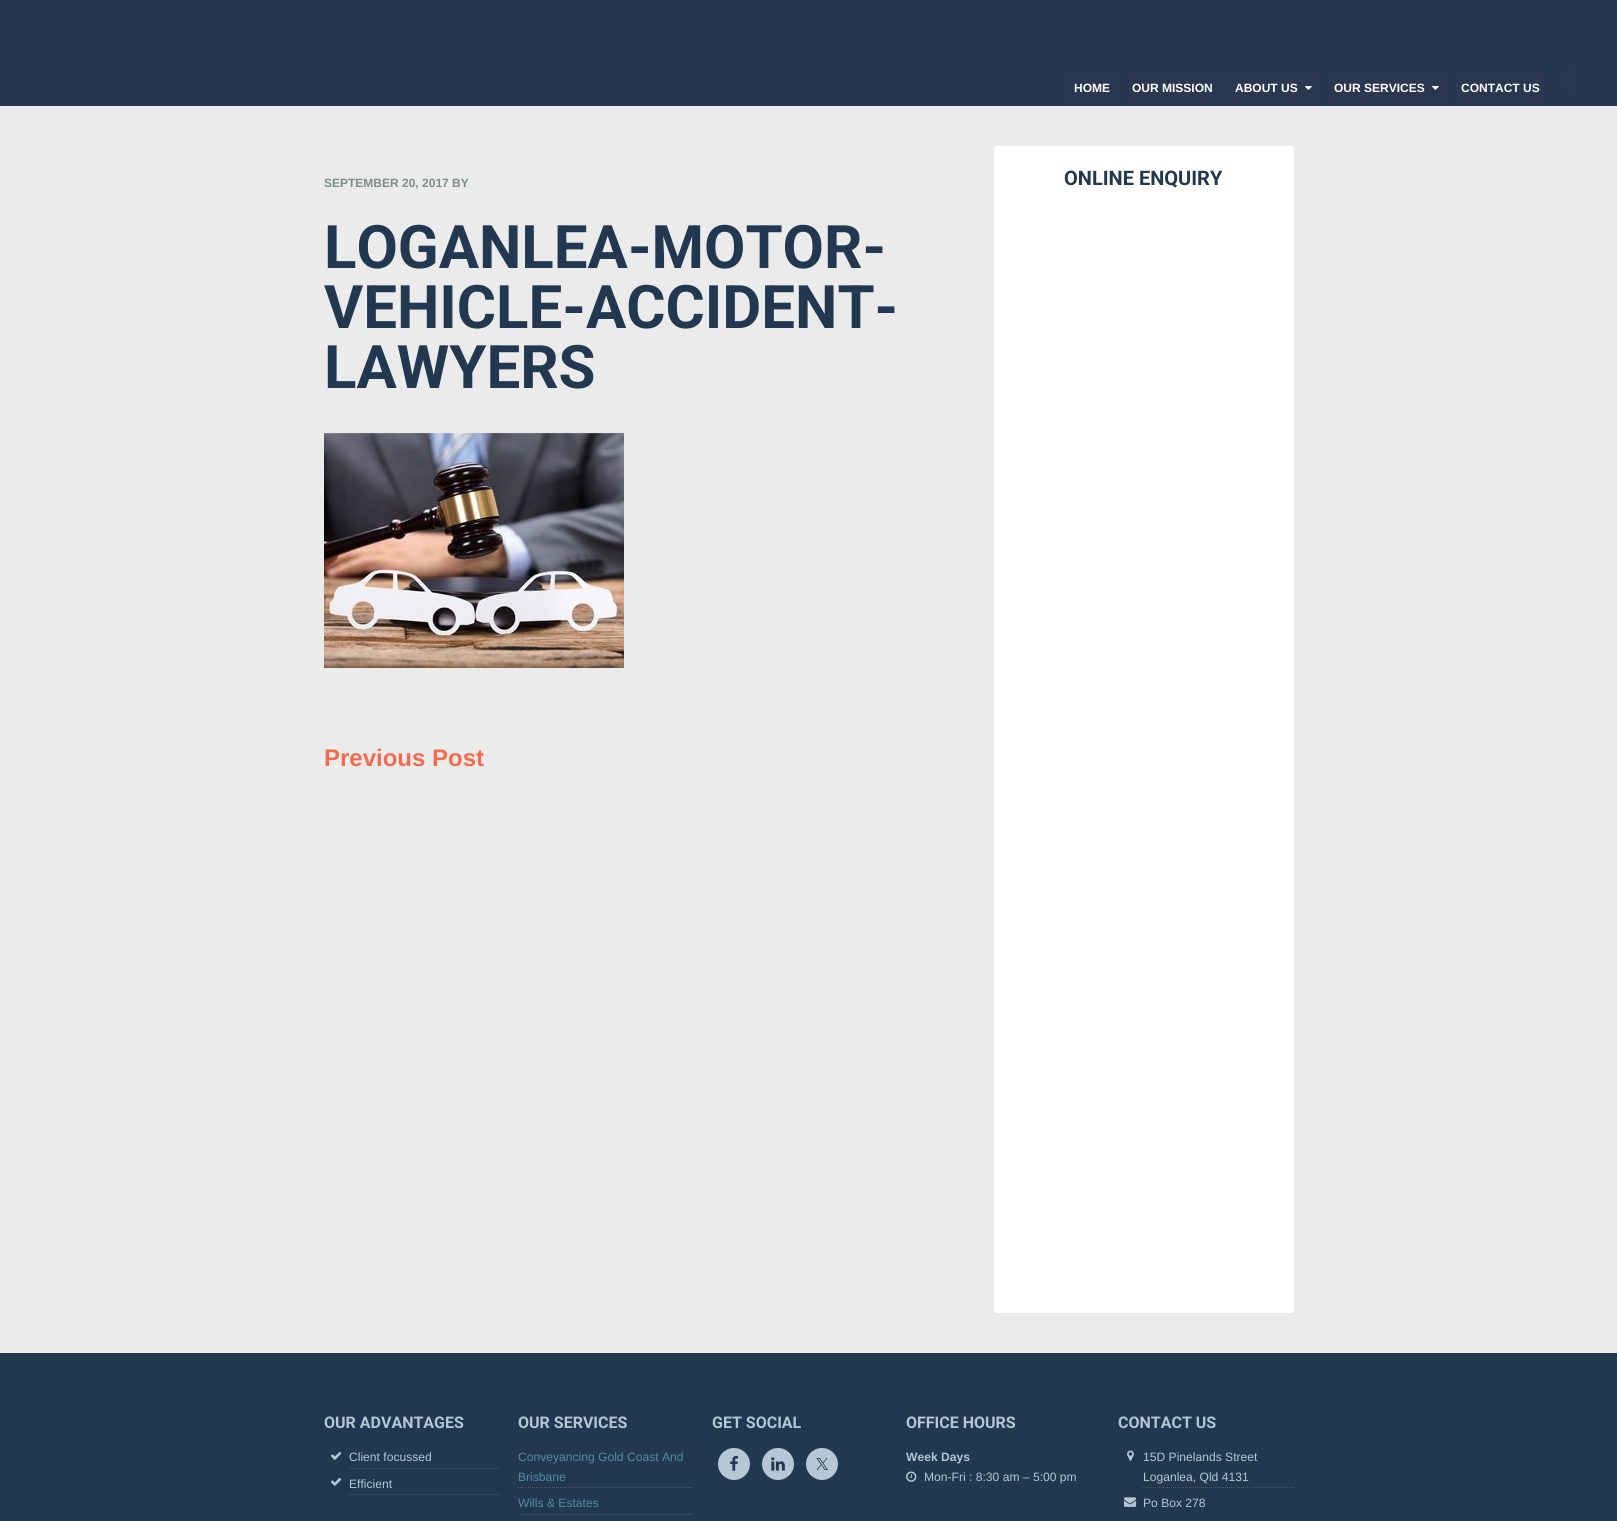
import math
import cairo



def rounded_rect(context, x, y, w, h, r):
    context.new_sub_path()
    for i, (u, v) in enumerate([(x + w - r, y + h - r), (x + r, y + h - r), (x + r, y + r), (x + w - r, y + r)]):
        context.arc(u, v, r, i * math.pi / 2, (i + 1) * math.pi / 2)
    context.close_path()


def draw_image(context, path, x, y, w, h):
    context.save()
    context.set_source_surface(cairo.ImageSurface.create_from_png(path), x, y)
    context.rectangle(x, y, w, h)
    context.fill()
    context.restore()


def draw(context):
    context.set_source_rgb(235 / 255, 235 / 255, 235 / 255)
    context.paint()
    context.set_source_rgb(38 / 255, 56 / 255, 80 / 255)
    context.rectangle(0, 0, 1617, 106)
    context.fill()
    context.set_source_rgb(41 / 255, 56 / 255, 80 / 255)
    context.rectangle(1067, 70, 50, 36)
    context.fill()
    context.rectangle(1125, 70, 95, 36)
    context.fill()
    context.rectangle(1228, 70, 91, 36)
    context.fill()
    draw_image(context, "images/1.png", 1305, 86, 7, 4)
    context.rectangle(1327, 70, 119, 36)
    context.fill()
    draw_image(context, "images/1.png", 1432, 86, 7, 4)
    context.rectangle(1454, 70, 93, 36)
    context.fill()
    context.rectangle(1563, 68, 14, 24)
    context.fill()
    draw_image(context, "images/2.png", 324, 433, 300, 235)
    context.set_source_rgb(1, 1, 1)
    rounded_rect(context, 994, 146, 300, 1167, 3)
    context.fill()
    context.set_source_rgb(34 / 255, 56 / 255, 80 / 255)
    context.rectangle(0, 1353, 1617, 168)
    context.fill()
    context.new_path()
    context.move_to(349, 1468.5)
    context.line_to(500, 1468.5)
    context.set_source_rgb(85 / 255, 85 / 255, 85 / 255)
    context.set_line_width(1)
    context.set_dash([1, 1])
    context.stroke()
    draw_image(context, "images/3.png", 330, 1451, 12, 9)
    context.new_path()
    context.move_to(349, 1494.5)
    context.line_to(500, 1494.5)
    context.stroke()
    draw_image(context, "images/3.png", 330, 1477, 12, 9)
    context.new_path()
    context.move_to(518, 1487.5)
    context.line_to(694, 1487.5)
    context.stroke()
    context.new_path()
    context.move_to(518, 1514.5)
    context.line_to(694, 1514.5)
    context.stroke()
    context.set_source_rgb(181 / 255, 199 / 255, 213 / 255)
    context.arc(734, 1464, 16, 0, 2 * math.pi)
    context.fill()
    draw_image(context, "images/4.png", 730, 1456, 8, 15)
    context.arc(778, 1464, 16, 0, 2 * math.pi)
    context.fill()
    draw_image(context, "images/5.png", 771, 1457, 14, 14)
    context.arc(822, 1464, 16, 0, 2 * math.pi)
    context.fill()
    draw_image(context, "images/6.png", 816, 1458, 12, 12)
    draw_image(context, "images/7.png", 906, 1471, 11, 11)
    context.new_path()
    context.move_to(1143, 1487.5)
    context.line_to(1294, 1487.5)
    context.set_source_rgb(85 / 255, 85 / 255, 85 / 255)
    context.stroke()
    draw_image(context, "images/8.png", 1127, 1450, 7, 11)
    draw_image(context, "images/9.png", 1124, 1497, 13, 10)
    context.select_font_face("Liberation Sans", cairo.FontSlant.NORMAL, cairo.FontWeight.BOLD)
    context.set_font_size(12)
    context.set_source_rgb(1, 1, 1)
    context.move_to(1074, 92)
    context.show_text("HOME")
    context.move_to(1132, 92)
    context.show_text("OUR MISSION")
    context.move_to(1235, 92)
    context.show_text("ABOUT US")
    context.move_to(1334, 92)
    context.show_text("OUR SERVICES")
    context.move_to(1461, 92)
    context.show_text("CONTACT US")
    context.set_source_rgb(127 / 255, 140 / 255, 141 / 255)
    context.move_to(324, 187)
    context.show_text("SEPTEMBER 20, 2017 BY")
    context.select_font_face("Roboto", cairo.FontSlant.NORMAL, cairo.FontWeight.BOLD)
    context.set_font_size(60)
    context.set_source_rgb(34 / 255, 56 / 255, 80 / 255)
    context.move_to(324, 268)
    context.show_text("LOGANLEA-MOTOR-")
    context.move_to(324, 328)
    context.show_text("VEHICLE-ACCIDENT-")
    context.move_to(324, 388)
    context.show_text("LAWYERS")
    context.select_font_face("Liberation Sans", cairo.FontSlant.NORMAL, cairo.FontWeight.BOLD)
    context.set_font_size(24)
    context.set_source_rgb(242 / 255, 108 / 255, 79 / 255)
    context.move_to(324, 766)
    context.show_text("Previous Post")
    context.select_font_face("Roboto", cairo.FontSlant.NORMAL, cairo.FontWeight.BOLD)
    context.set_font_size(20)
    context.set_source_rgb(34 / 255, 56 / 255, 80 / 255)
    context.move_to(1064, 185)
    context.show_text("ONLINE ENQUIRY")
    context.set_font_size(16)
    context.set_source_rgb(181 / 255, 199 / 255, 213 / 255)
    context.move_to(324, 1428)
    context.show_text("OUR ADVANTAGES")
    context.select_font_face("Liberation Sans")
    context.set_font_size(12.1)
    context.move_to(349, 1461)
    context.show_text("Client focussed")
    context.move_to(349, 1488)
    context.show_text("Efficient")
    context.select_font_face("Roboto", cairo.FontSlant.NORMAL, cairo.FontWeight.BOLD)
    context.set_font_size(16)
    context.move_to(518, 1428)
    context.show_text("OUR SERVICES")
    context.select_font_face("Liberation Sans")
    context.set_font_size(12.1)
    context.set_source_rgb(82 / 255, 140 / 255, 162 / 255)
    context.move_to(518, 1461)
    context.show_text("Conveyancing Gold Coast And")
    context.move_to(518, 1481)
    context.show_text("Brisbane")
    context.move_to(518, 1507)
    context.show_text("Wills & Estates")
    context.select_font_face("Roboto", cairo.FontSlant.NORMAL, cairo.FontWeight.BOLD)
    context.set_font_size(16)
    context.set_source_rgb(181 / 255, 199 / 255, 213 / 255)
    context.move_to(712, 1428)
    context.show_text("GET SOCIAL")
    context.move_to(906, 1428)
    context.show_text("OFFICE HOURS")
    context.select_font_face("Liberation Sans", cairo.FontSlant.NORMAL, cairo.FontWeight.BOLD)
    context.set_font_size(12.1)
    context.move_to(906, 1461)
    context.show_text("Week Days")
    context.select_font_face("Liberation Sans")
    context.move_to(924, 1481)
    context.show_text("Mon-Fri : 8:30 am – 5:00 pm")
    context.select_font_face("Roboto", cairo.FontSlant.NORMAL, cairo.FontWeight.BOLD)
    context.set_font_size(16)
    context.move_to(1118, 1428)
    context.show_text("CONTACT US")
    context.select_font_face("Liberation Sans")
    context.set_font_size(12.1)
    context.move_to(1143, 1461)
    context.show_text("15D Pinelands Street")
    context.move_to(1143, 1481)
    context.show_text("Loganlea, Qld 4131")
    context.move_to(1143, 1507)
    context.show_text("Po Box 278")


surface = cairo.ImageSurface(cairo.Format.RGB24, 1617, 1521)
context = cairo.Context(surface)
options = cairo.FontOptions()
options.set_hint_metrics(cairo.HintMetrics.OFF)
options.set_hint_style(cairo.HintStyle.NONE)
context.set_font_options(options)
context.set_miter_limit(4)
draw(context)
surface.write_to_png("out.png")
